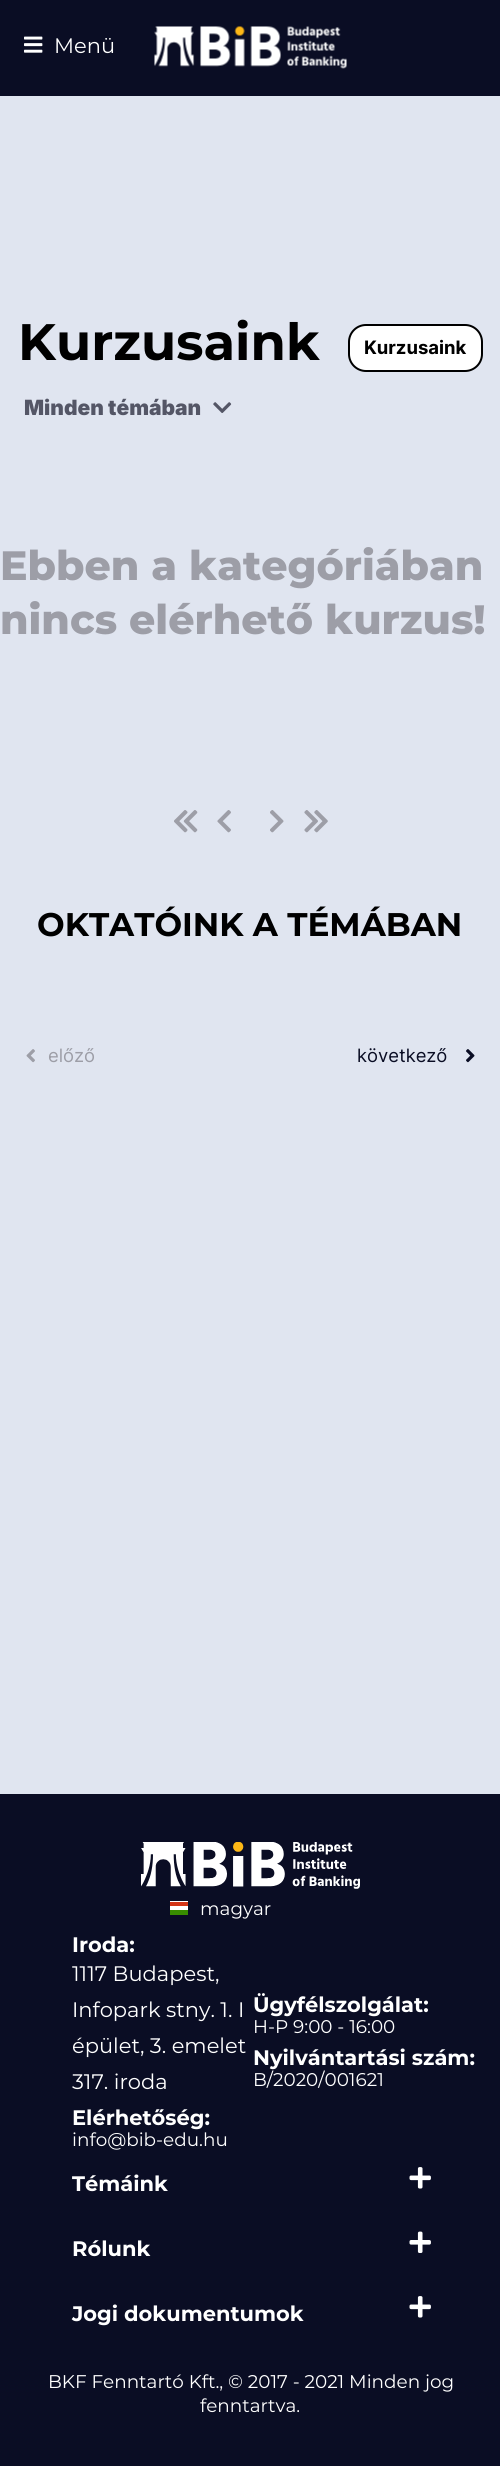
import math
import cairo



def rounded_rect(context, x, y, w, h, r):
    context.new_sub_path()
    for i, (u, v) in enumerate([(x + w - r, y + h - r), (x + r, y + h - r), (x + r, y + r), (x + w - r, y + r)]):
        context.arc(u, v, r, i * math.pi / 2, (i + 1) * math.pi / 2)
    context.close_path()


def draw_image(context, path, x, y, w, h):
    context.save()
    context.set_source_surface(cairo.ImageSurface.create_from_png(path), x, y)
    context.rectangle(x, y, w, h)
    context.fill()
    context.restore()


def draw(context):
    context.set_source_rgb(224 / 255, 229 / 255, 240 / 255)
    context.paint()
    context.set_source_rgb(10 / 255, 13 / 255, 36 / 255)
    context.rectangle(0, 0, 500, 96)
    context.fill()
    draw_image(context, "images/1.png", 24, 36, 19, 17)
    draw_image(context, "images/2.png", 154, 26, 193, 43)
    context.set_source_rgb(1, 1, 1)
    rounded_rect(context, 349, 325, 133, 46, 17)
    context.fill_preserve()
    context.set_source_rgb(0, 0, 0)
    context.stroke()
    draw_image(context, "images/3.png", 213, 402, 19, 11)
    draw_image(context, "images/4.png", 174, 810, 24, 23)
    draw_image(context, "images/5.png", 217, 810, 14, 23)
    draw_image(context, "images/6.png", 270, 810, 14, 23)
    draw_image(context, "images/7.png", 304, 810, 24, 23)
    draw_image(context, "images/8.png", 26, 1049, 9, 14)
    draw_image(context, "images/9.png", 466, 1049, 9, 14)
    context.set_source_rgb(10 / 255, 13 / 255, 36 / 255)
    context.rectangle(0, 1794, 500, 672)
    context.fill()
    draw_image(context, "images/10.png", 141, 1842, 219, 47)
    context.set_source_rgb(1, 1, 1)
    context.rectangle(170, 1901, 18, 9)
    context.fill()
    context.set_source_rgb(56 / 255, 141 / 255, 0)
    context.rectangle(170, 1910, 18, 5)
    context.fill()
    context.set_source_rgb(212 / 255, 53 / 255, 22 / 255)
    context.rectangle(170, 1902, 18, 4)
    context.fill()
    draw_image(context, "images/11.png", 409, 2167, 22, 22)
    draw_image(context, "images/12.png", 409, 2231, 22, 22)
    draw_image(context, "images/11.png", 409, 2296, 22, 22)
    context.select_font_face("Montserrat")
    context.set_font_size(21)
    context.set_source_rgb(1, 1, 1)
    context.move_to(54, 53)
    context.show_text("Menü")
    context.select_font_face("Montserrat", cairo.FontSlant.NORMAL, cairo.FontWeight.BOLD)
    context.set_font_size(51.25)
    context.set_source_rgb(0, 0, 0)
    context.move_to(18, 360)
    context.show_text("Kurzusaink")
    context.select_font_face("Inter", cairo.FontSlant.NORMAL, cairo.FontWeight.BOLD)
    context.set_font_size(18.5)
    context.move_to(364, 354)
    context.show_text("Kurzusaink")
    context.select_font_face("Inter Black")
    context.set_font_size(21)
    context.set_source_rgb(84 / 255, 86 / 255, 102 / 255)
    context.move_to(24, 415)
    context.show_text("Minden témában")
    context.select_font_face("Montserrat ExtraBold")
    context.set_font_size(41)
    context.set_source_rgb(157 / 255, 158 / 255, 167 / 255)
    context.move_to(0, 580)
    context.show_text("Ebben a kategóriában")
    context.move_to(0, 634)
    context.show_text("nincs elérhető kurzus!")
    context.select_font_face("Montserrat", cairo.FontSlant.NORMAL, cairo.FontWeight.BOLD)
    context.set_font_size(32.75)
    context.set_source_rgb(0, 0, 0)
    context.move_to(37, 936)
    context.show_text("OKTATÓINK A TÉMÁBAN")
    context.select_font_face("Inter")
    context.set_font_size(18.4)
    context.set_source_rgb(157 / 255, 158 / 255, 167 / 255)
    context.move_to(48, 1062)
    context.show_text("előző")
    context.set_source_rgb(10 / 255, 13 / 255, 36 / 255)
    context.move_to(357, 1062)
    context.show_text("következő")
    context.select_font_face("Montserrat")
    context.set_source_rgb(1, 1, 1)
    context.move_to(200, 1915)
    context.show_text("magyar")
    context.select_font_face("Montserrat", cairo.FontSlant.NORMAL, cairo.FontWeight.BOLD)
    context.set_font_size(21)
    context.move_to(72, 1952)
    context.show_text("Iroda:")
    context.select_font_face("Montserrat")
    context.move_to(72, 1981)
    context.show_text("1117 Budapest,")
    context.move_to(72, 2017)
    context.show_text("Infopark stny. 1. I")
    context.move_to(72, 2053)
    context.show_text("épület, 3. emelet")
    context.move_to(72, 2089)
    context.show_text("317. iroda")
    context.select_font_face("Montserrat", cairo.FontSlant.NORMAL, cairo.FontWeight.BOLD)
    context.move_to(72, 2125)
    context.show_text("Elérhetőség:")
    context.select_font_face("Montserrat")
    context.set_font_size(18.4)
    context.move_to(72, 2146)
    context.show_text("info@bib-edu.hu")
    context.select_font_face("Montserrat", cairo.FontSlant.NORMAL, cairo.FontWeight.BOLD)
    context.set_font_size(21)
    context.move_to(253, 2012)
    context.show_text("Ügyfélszolgálat:")
    context.select_font_face("Montserrat")
    context.set_font_size(18.4)
    context.move_to(253, 2033)
    context.show_text("H-P 9:00 - 16:00")
    context.select_font_face("Montserrat", cairo.FontSlant.NORMAL, cairo.FontWeight.BOLD)
    context.set_font_size(21)
    context.move_to(253, 2065)
    context.show_text("Nyilvántartási szám:")
    context.select_font_face("Montserrat")
    context.set_font_size(18.4)
    context.move_to(253, 2086)
    context.show_text("B/2020/001621")
    context.select_font_face("Montserrat", cairo.FontSlant.NORMAL, cairo.FontWeight.BOLD)
    context.set_font_size(21)
    context.move_to(72, 2191)
    context.show_text("Témáink")
    context.move_to(72, 2256)
    context.show_text("Rólunk")
    context.move_to(72, 2321)
    context.show_text("Jogi dokumentumok")
    context.select_font_face("Montserrat")
    context.set_font_size(18.4)
    context.move_to(48, 2388)
    context.show_text("BKF Fenntartó Kft., © 2017 - 2021 Minden jog")
    context.move_to(200, 2412)
    context.show_text("fenntartva.")


surface = cairo.ImageSurface(cairo.Format.RGB24, 500, 2466)
context = cairo.Context(surface)
options = cairo.FontOptions()
options.set_hint_metrics(cairo.HintMetrics.OFF)
options.set_hint_style(cairo.HintStyle.NONE)
context.set_font_options(options)
context.set_miter_limit(4)
draw(context)
surface.write_to_png("out.png")
